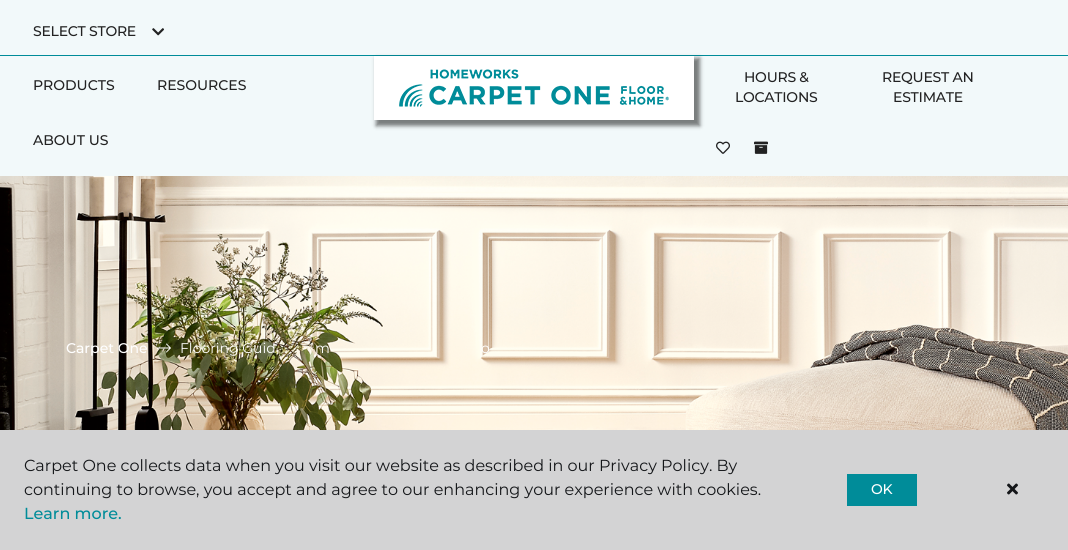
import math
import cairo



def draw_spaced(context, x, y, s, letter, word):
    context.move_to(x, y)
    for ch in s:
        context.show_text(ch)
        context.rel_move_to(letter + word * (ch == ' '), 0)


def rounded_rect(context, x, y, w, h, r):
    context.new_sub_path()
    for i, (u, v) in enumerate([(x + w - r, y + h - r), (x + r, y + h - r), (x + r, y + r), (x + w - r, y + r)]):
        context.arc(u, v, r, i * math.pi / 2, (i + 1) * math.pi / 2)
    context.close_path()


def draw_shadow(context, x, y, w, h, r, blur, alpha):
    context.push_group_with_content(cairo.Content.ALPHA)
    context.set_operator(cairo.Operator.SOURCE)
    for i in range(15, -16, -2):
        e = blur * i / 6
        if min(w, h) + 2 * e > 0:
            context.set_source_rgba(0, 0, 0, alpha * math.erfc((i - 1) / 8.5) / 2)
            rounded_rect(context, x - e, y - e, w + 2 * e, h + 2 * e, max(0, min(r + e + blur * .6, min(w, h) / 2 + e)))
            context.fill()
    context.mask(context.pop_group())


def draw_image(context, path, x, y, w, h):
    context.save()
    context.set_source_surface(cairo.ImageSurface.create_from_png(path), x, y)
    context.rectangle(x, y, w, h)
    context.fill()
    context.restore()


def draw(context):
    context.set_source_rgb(242 / 255, 249 / 255, 250 / 255)
    context.paint()
    context.set_source_rgb(0, 140 / 255, 153 / 255)
    context.rectangle(0, 55, 1068, 1)
    context.fill()
    draw_image(context, "images/1.png", 152, 28, 12, 8)
    context.set_source_rgb(0, 0, 0)
    draw_shadow(context, 376, 58, 324, 68, 0, 2, 0.5)
    context.set_source_rgb(1, 1, 1)
    context.rectangle(374, 56, 320, 64)
    context.fill()
    draw_image(context, "images/2.png", 399, 69, 270, 38)
    draw_image(context, "images/3.png", 716, 141, 14, 13)
    draw_image(context, "images/4.png", 754, 141, 14, 13)
    draw_image(context, "images/5.png", 0, 176, 1068, 254)
    draw_image(context, "images/6.png", 157, 343, 14, 10)
    context.set_source_rgb(211 / 255, 211 / 255, 212 / 255)
    context.rectangle(0, 430, 1068, 120)
    context.fill()
    context.set_source_rgb(0, 140 / 255, 153 / 255)
    context.rectangle(847, 474, 70, 32)
    context.fill()
    draw_image(context, "images/7.png", 1007, 483, 11, 12)
    context.select_font_face("Montserrat Medium")
    context.set_font_size(14)
    context.set_source_rgb(34 / 255, 34 / 255, 34 / 255)
    draw_spaced(context, 33, 36, "SELECT STORE", -0.25, 0)
    context.move_to(33, 90)
    context.show_text("PRODUCTS")
    context.move_to(157, 90)
    context.show_text("RESOURCES")
    context.move_to(33, 145)
    context.show_text("ABOUT US")
    draw_spaced(context, 744, 82, "HOURS &", -0.25, 0)
    draw_spaced(context, 735, 102, "LOCATIONS", -0.25, 0)
    draw_spaced(context, 882, 82, "REQUEST AN", -0.25, 0)
    draw_spaced(context, 893, 102, "ESTIMATE", -0.25, 0)
    context.set_source_rgb(1, 1, 1)
    context.move_to(66, 353)
    context.show_text("Carpet One")
    context.select_font_face("Montserrat")
    context.move_to(180, 353)
    context.show_text("Flooring Guid")
    context.move_to(315, 353)
    context.show_text("m")
    context.move_to(481, 353)
    context.show_text("o")
    context.set_font_size(16)
    context.set_source_rgb(20 / 255, 22 / 255, 25 / 255)
    context.move_to(24, 471)
    context.show_text("Carpet One collects data when you visit our website as described in our Privacy Policy. By")
    context.move_to(24, 495)
    context.show_text("continuing to browse, you accept and agree to our enhancing your experience with cookies.")
    context.select_font_face("Montserrat Medium")
    context.set_source_rgb(0, 140 / 255, 153 / 255)
    context.move_to(24, 519)
    context.show_text("Learn more.")
    context.set_font_size(14)
    context.set_source_rgb(1, 1, 1)
    draw_spaced(context, 871, 494, "OK", -0.25, 0)


surface = cairo.ImageSurface(cairo.Format.RGB24, 1068, 550)
context = cairo.Context(surface)
options = cairo.FontOptions()
options.set_hint_metrics(cairo.HintMetrics.OFF)
options.set_hint_style(cairo.HintStyle.NONE)
context.set_font_options(options)
context.set_miter_limit(4)
draw(context)
surface.write_to_png("out.png")
